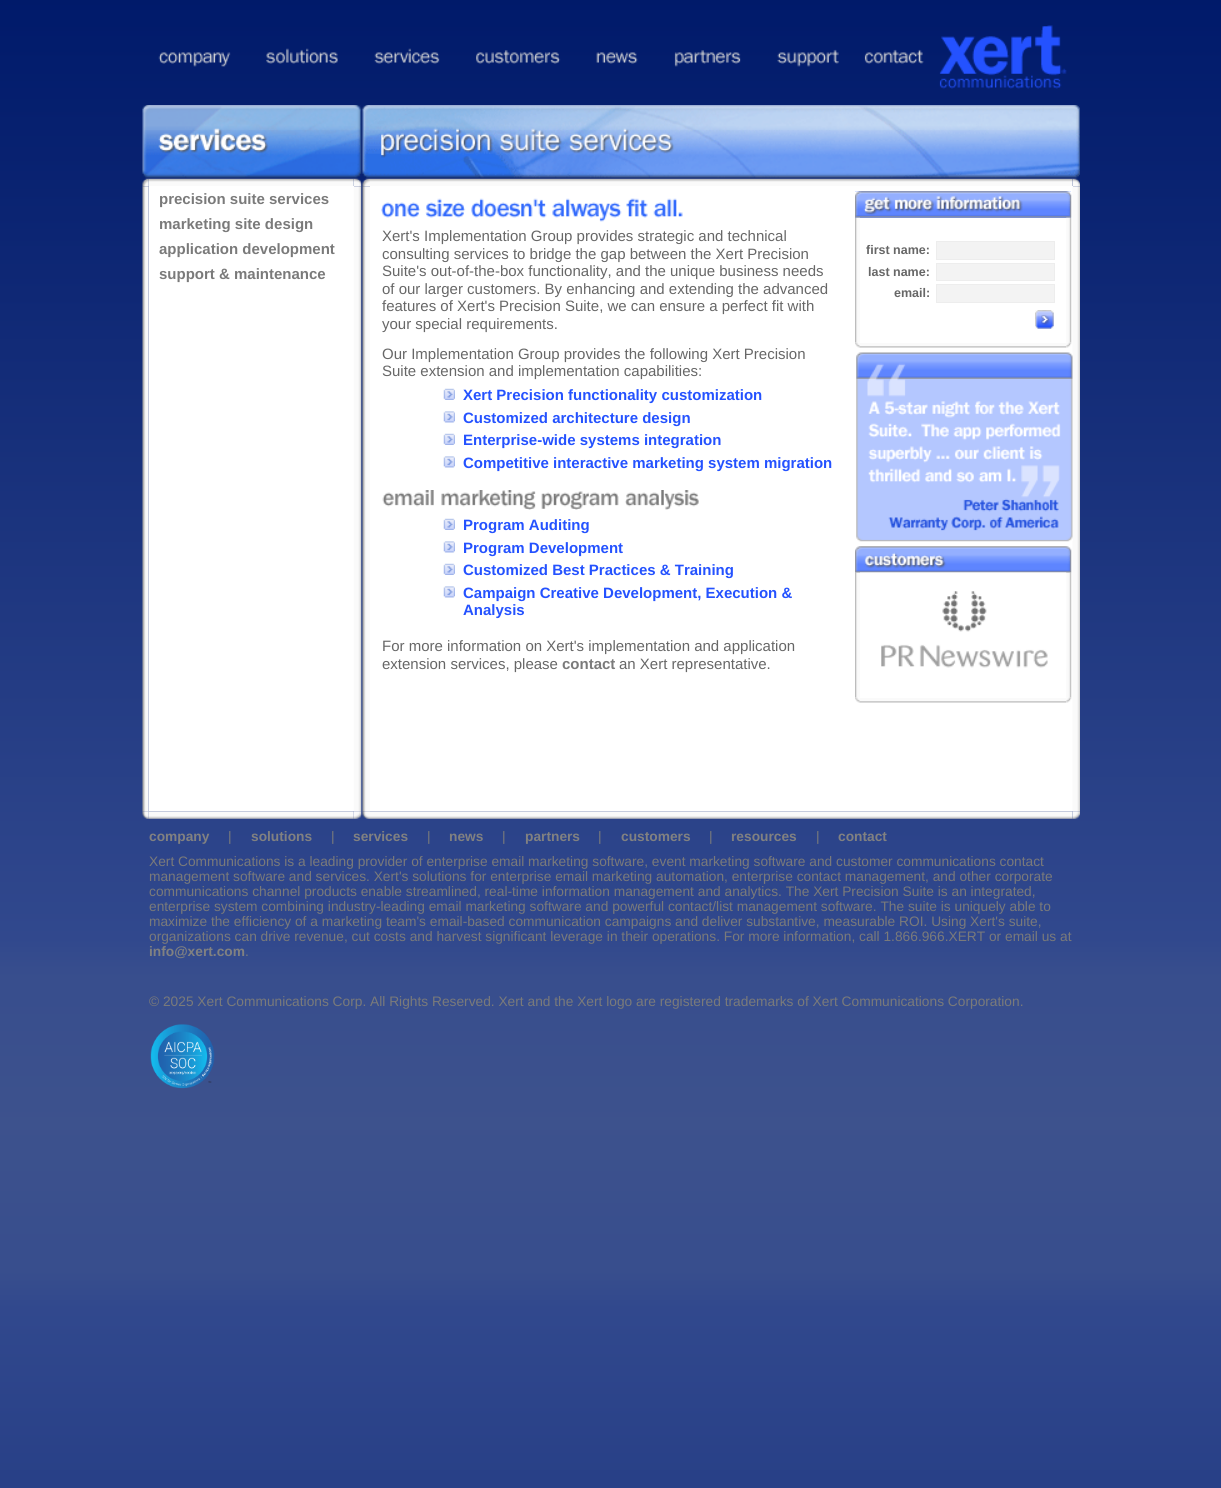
import math
import cairo



def draw_image(context, path, x, y, w, h):
    context.save()
    context.set_source_surface(cairo.ImageSurface.create_from_png(path), x, y)
    context.rectangle(x, y, w, h)
    context.fill()
    context.restore()


def draw(context):
    context.set_source_rgb(1, 1, 1)
    context.paint()
    draw_image(context, "images/1.png", 0, 0, 1221, 1488)
    draw_image(context, "images/2.png", 158, 52, 73, 15)
    draw_image(context, "images/3.png", 266, 48, 72, 16)
    draw_image(context, "images/4.png", 374, 48, 66, 16)
    draw_image(context, "images/5.png", 476, 50, 85, 14)
    draw_image(context, "images/6.png", 596, 52, 42, 12)
    draw_image(context, "images/7.png", 674, 50, 67, 17)
    draw_image(context, "images/8.png", 777, 49, 62, 18)
    draw_image(context, "images/9.png", 864, 49, 60, 15)
    draw_image(context, "images/10.png", 939, 25, 128, 64)
    draw_image(context, "images/11.png", 142, 105, 220, 73)
    draw_image(context, "images/12.png", 362, 105, 718, 73)
    draw_image(context, "images/13.png", 142, 178, 7, 9)
    draw_image(context, "images/14.png", 148, 178, 206, 9)
    draw_image(context, "images/15.png", 353, 178, 9, 9)
    draw_image(context, "images/16.png", 362, 178, 8, 9)
    draw_image(context, "images/17.png", 370, 178, 703, 8)
    draw_image(context, "images/18.png", 1072, 178, 8, 9)
    draw_image(context, "images/19.png", 142, 186, 7, 626)
    context.set_source_rgb(1, 1, 1)
    context.rectangle(149, 186, 205, 625)
    context.fill()
    draw_image(context, "images/20.png", 353, 186, 9, 626)
    draw_image(context, "images/21.png", 362, 186, 8, 626)
    context.rectangle(370, 186, 703, 625)
    context.fill()
    draw_image(context, "images/22.png", 381, 198, 302, 24)
    draw_image(context, "images/23.png", 443, 388, 12, 12)
    draw_image(context, "images/24.png", 443, 411, 12, 12)
    draw_image(context, "images/23.png", 443, 433, 12, 12)
    draw_image(context, "images/24.png", 443, 456, 12, 12)
    draw_image(context, "images/25.png", 382, 490, 317, 20)
    draw_image(context, "images/23.png", 443, 518, 12, 12)
    draw_image(context, "images/24.png", 443, 541, 12, 12)
    draw_image(context, "images/23.png", 443, 563, 12, 12)
    draw_image(context, "images/26.png", 443, 586, 12, 12)
    context.set_source_rgb(111 / 255, 147 / 255, 1)
    context.rectangle(855, 191, 216, 27)
    context.fill()
    draw_image(context, "images/28.png", 855, 217, 5, 126)
    draw_image(context, "images/30.png", 1066, 217, 6, 126)
    draw_image(context, "images/27.png", 855, 191, 217, 27)
    context.set_source_rgb(243 / 255, 243 / 255, 243 / 255)
    context.rectangle(936.5, 241.5, 118, 18)
    context.fill_preserve()
    context.set_source_rgb(237 / 255, 237 / 255, 237 / 255)
    context.set_line_width(1)
    context.stroke()
    context.set_source_rgb(243 / 255, 243 / 255, 243 / 255)
    context.rectangle(936.5, 263.5, 118, 17)
    context.fill_preserve()
    context.set_source_rgb(237 / 255, 237 / 255, 237 / 255)
    context.stroke()
    context.set_source_rgb(243 / 255, 243 / 255, 243 / 255)
    context.rectangle(936.5, 284.5, 118, 18)
    context.fill_preserve()
    context.set_source_rgb(237 / 255, 237 / 255, 237 / 255)
    context.stroke()
    draw_image(context, "images/29.png", 1035, 310, 19, 19)
    draw_image(context, "images/31.png", 855, 342, 5, 6)
    draw_image(context, "images/32.png", 860, 343, 206, 5)
    draw_image(context, "images/33.png", 1066, 342, 6, 6)
    draw_image(context, "images/37.png", 1072, 186, 8, 626)
    draw_image(context, "images/34.png", 856, 352, 217, 190)
    draw_image(context, "images/28.png", 855, 572, 5, 126)
    draw_image(context, "images/30.png", 1066, 572, 6, 126)
    draw_image(context, "images/35.png", 855, 546, 217, 27)
    draw_image(context, "images/36.png", 860, 572, 207, 96)
    draw_image(context, "images/31.png", 855, 697, 5, 6)
    draw_image(context, "images/32.png", 860, 698, 206, 5)
    draw_image(context, "images/33.png", 1066, 697, 6, 6)
    draw_image(context, "images/38.png", 142, 811, 7, 8)
    draw_image(context, "images/39.png", 148, 811, 206, 8)
    draw_image(context, "images/40.png", 353, 811, 9, 8)
    draw_image(context, "images/41.png", 362, 811, 8, 8)
    draw_image(context, "images/42.png", 370, 811, 703, 8)
    draw_image(context, "images/43.png", 1072, 811, 8, 8)
    draw_image(context, "images/44.png", 150, 1024, 65, 65)
    context.select_font_face("Liberation Sans", cairo.FontSlant.NORMAL, cairo.FontWeight.BOLD)
    context.set_font_size(15)
    context.set_source_rgb(122 / 255, 122 / 255, 122 / 255)
    context.move_to(159, 204)
    context.show_text("precision suite services")
    context.move_to(159, 229)
    context.show_text("marketing site design")
    context.move_to(159, 254)
    context.show_text("application development")
    context.move_to(159, 279)
    context.show_text("support & maintenance")
    context.select_font_face("Liberation Sans")
    context.set_source_rgb(103 / 255, 103 / 255, 103 / 255)
    context.move_to(382, 241)
    context.show_text("Xert's Implementation Group provides strategic and technical")
    context.move_to(382, 259)
    context.show_text("consulting services to bridge the gap between the Xert Precision")
    context.move_to(382, 276)
    context.show_text("Suite's out-of-the-box functionality, and the unique business needs")
    context.move_to(382, 294)
    context.show_text("of our larger customers. By enhancing and extending the advanced")
    context.move_to(382, 311)
    context.show_text("features of Xert's Precision Suite, we can ensure a perfect fit with")
    context.move_to(382, 329)
    context.show_text("your special requirements.")
    context.move_to(382, 359)
    context.show_text("Our Implementation Group provides the following Xert Precision")
    context.move_to(382, 376)
    context.show_text("Suite extension and implementation capabilities:")
    context.select_font_face("Liberation Sans", cairo.FontSlant.NORMAL, cairo.FontWeight.BOLD)
    context.set_source_rgb(36 / 255, 82 / 255, 1)
    context.move_to(463, 400)
    context.show_text("Xert Precision functionality customization")
    context.move_to(463, 423)
    context.show_text("Customized architecture design")
    context.move_to(463, 445)
    context.show_text("Enterprise-wide systems integration")
    context.move_to(463, 468)
    context.show_text("Competitive interactive marketing system migration")
    context.move_to(463, 530)
    context.show_text("Program Auditing")
    context.move_to(463, 553)
    context.show_text("Program Development")
    context.move_to(463, 575)
    context.show_text("Customized Best Practices & Training")
    context.move_to(463, 598)
    context.show_text("Campaign Creative Development, Execution &")
    context.move_to(463, 615)
    context.show_text("Analysis")
    context.select_font_face("Liberation Sans")
    context.set_source_rgb(103 / 255, 103 / 255, 103 / 255)
    context.move_to(382, 651)
    context.show_text("For more information on Xert's implementation and application")
    context.move_to(382, 669)
    context.show_text("extension services, please")
    context.select_font_face("Liberation Sans", cairo.FontSlant.NORMAL, cairo.FontWeight.BOLD)
    context.set_source_rgb(122 / 255, 122 / 255, 122 / 255)
    context.move_to(562, 669)
    context.show_text("contact")
    context.select_font_face("Liberation Sans")
    context.set_source_rgb(103 / 255, 103 / 255, 103 / 255)
    context.move_to(619, 669)
    context.show_text("an Xert representative.")
    context.select_font_face("Liberation Sans", cairo.FontSlant.NORMAL, cairo.FontWeight.BOLD)
    context.set_font_size(12.5)
    context.move_to(866, 254)
    context.show_text("first name:")
    context.move_to(868, 276)
    context.show_text("last name:")
    context.move_to(894, 297)
    context.show_text("email:")
    context.set_font_size(13.75)
    context.set_source_rgb(129 / 255, 129 / 255, 129 / 255)
    context.move_to(149, 841)
    context.show_text("company")
    context.select_font_face("Liberation Sans")
    context.set_source_rgb(122 / 255, 122 / 255, 122 / 255)
    context.move_to(228, 841)
    context.show_text("|")
    context.select_font_face("Liberation Sans", cairo.FontSlant.NORMAL, cairo.FontWeight.BOLD)
    context.set_source_rgb(129 / 255, 129 / 255, 129 / 255)
    context.move_to(251, 841)
    context.show_text("solutions")
    context.select_font_face("Liberation Sans")
    context.set_source_rgb(122 / 255, 122 / 255, 122 / 255)
    context.move_to(331, 841)
    context.show_text("|")
    context.select_font_face("Liberation Sans", cairo.FontSlant.NORMAL, cairo.FontWeight.BOLD)
    context.set_source_rgb(129 / 255, 129 / 255, 129 / 255)
    context.move_to(353, 841)
    context.show_text("services")
    context.select_font_face("Liberation Sans")
    context.set_source_rgb(122 / 255, 122 / 255, 122 / 255)
    context.move_to(427, 841)
    context.show_text("|")
    context.select_font_face("Liberation Sans", cairo.FontSlant.NORMAL, cairo.FontWeight.BOLD)
    context.set_source_rgb(129 / 255, 129 / 255, 129 / 255)
    context.move_to(449, 841)
    context.show_text("news")
    context.select_font_face("Liberation Sans")
    context.set_source_rgb(122 / 255, 122 / 255, 122 / 255)
    context.move_to(502, 841)
    context.show_text("|")
    context.select_font_face("Liberation Sans", cairo.FontSlant.NORMAL, cairo.FontWeight.BOLD)
    context.set_source_rgb(129 / 255, 129 / 255, 129 / 255)
    context.move_to(525, 841)
    context.show_text("partners")
    context.select_font_face("Liberation Sans")
    context.set_source_rgb(122 / 255, 122 / 255, 122 / 255)
    context.move_to(598, 841)
    context.show_text("|")
    context.select_font_face("Liberation Sans", cairo.FontSlant.NORMAL, cairo.FontWeight.BOLD)
    context.set_source_rgb(129 / 255, 129 / 255, 129 / 255)
    context.move_to(621, 841)
    context.show_text("customers")
    context.select_font_face("Liberation Sans")
    context.set_source_rgb(122 / 255, 122 / 255, 122 / 255)
    context.move_to(709, 841)
    context.show_text("|")
    context.select_font_face("Liberation Sans", cairo.FontSlant.NORMAL, cairo.FontWeight.BOLD)
    context.set_source_rgb(129 / 255, 129 / 255, 129 / 255)
    context.move_to(731, 841)
    context.show_text("resources")
    context.select_font_face("Liberation Sans")
    context.set_source_rgb(122 / 255, 122 / 255, 122 / 255)
    context.move_to(816, 841)
    context.show_text("|")
    context.select_font_face("Liberation Sans", cairo.FontSlant.NORMAL, cairo.FontWeight.BOLD)
    context.set_source_rgb(129 / 255, 129 / 255, 129 / 255)
    context.move_to(838, 841)
    context.show_text("contact")
    context.select_font_face("Liberation Sans")
    context.set_source_rgb(122 / 255, 122 / 255, 122 / 255)
    context.move_to(149, 866)
    context.show_text("Xert Communications is a leading provider of enterprise email marketing software, event marketing software and customer communications contact")
    context.move_to(149, 881)
    context.show_text("management software and services. Xert's solutions for enterprise email marketing automation, enterprise contact management, and other corporate")
    context.move_to(149, 896)
    context.show_text("communications channel products enable streamlined, real-time information management and analytics. The Xert Precision Suite is an integrated,")
    context.move_to(149, 911)
    context.show_text("enterprise system combining industry-leading email marketing software and powerful contact/list management software. The suite is uniquely able to")
    context.move_to(149, 926)
    context.show_text("maximize the efficiency of a marketing team's email-based communication campaigns and deliver substantive, measurable ROI. Using Xert's suite,")
    context.move_to(149, 941)
    context.show_text("organizations can drive revenue, cut costs and harvest significant leverage in their operations. For more information, call 1.866.966.XERT or email us at")
    context.select_font_face("Liberation Sans", cairo.FontSlant.NORMAL, cairo.FontWeight.BOLD)
    context.set_source_rgb(129 / 255, 129 / 255, 129 / 255)
    context.move_to(149, 956)
    context.show_text("info@xert.com")
    context.select_font_face("Liberation Sans")
    context.set_source_rgb(122 / 255, 122 / 255, 122 / 255)
    context.move_to(245, 956)
    context.show_text(".")
    context.move_to(149, 1006)
    context.show_text("© 2025 Xert Communications Corp. All Rights Reserved. Xert and the Xert logo are registered trademarks of Xert Communications Corporation.")


surface = cairo.ImageSurface(cairo.Format.RGB24, 1221, 1488)
context = cairo.Context(surface)
options = cairo.FontOptions()
options.set_hint_metrics(cairo.HintMetrics.OFF)
options.set_hint_style(cairo.HintStyle.NONE)
context.set_font_options(options)
context.set_miter_limit(4)
draw(context)
surface.write_to_png("out.png")
